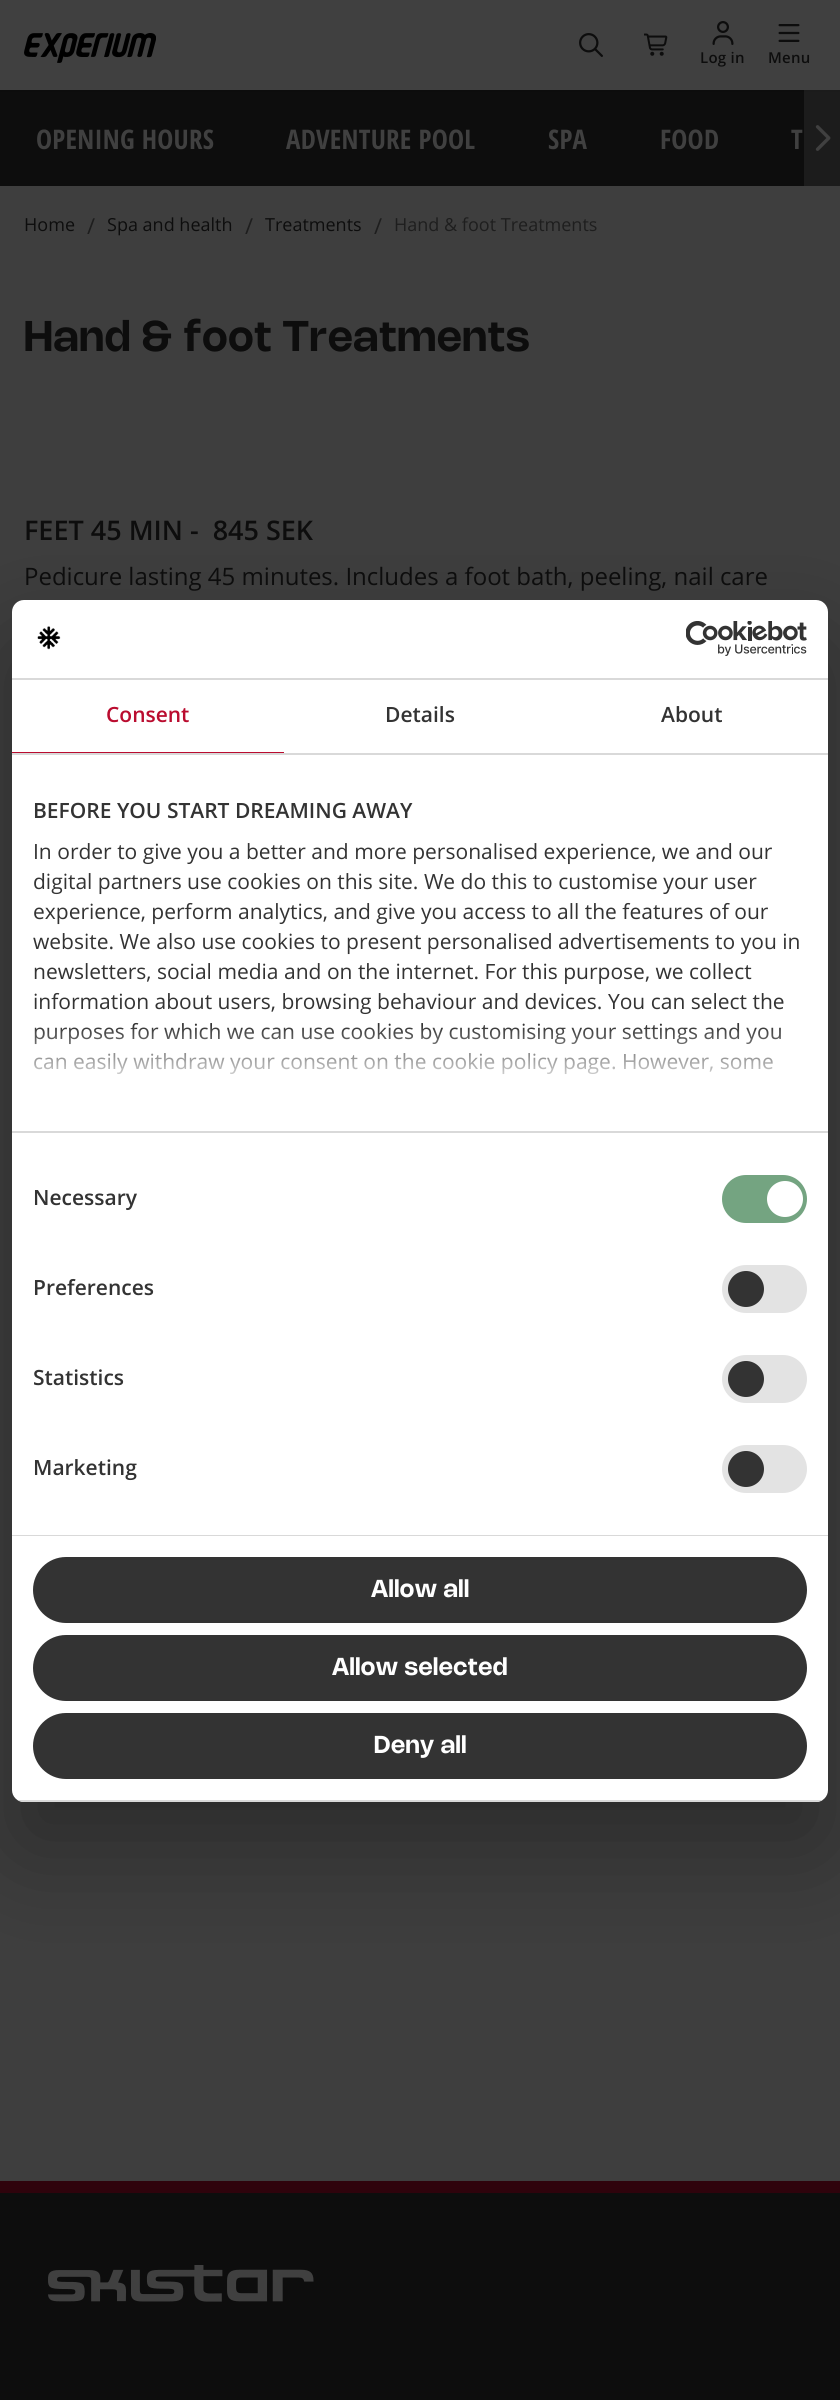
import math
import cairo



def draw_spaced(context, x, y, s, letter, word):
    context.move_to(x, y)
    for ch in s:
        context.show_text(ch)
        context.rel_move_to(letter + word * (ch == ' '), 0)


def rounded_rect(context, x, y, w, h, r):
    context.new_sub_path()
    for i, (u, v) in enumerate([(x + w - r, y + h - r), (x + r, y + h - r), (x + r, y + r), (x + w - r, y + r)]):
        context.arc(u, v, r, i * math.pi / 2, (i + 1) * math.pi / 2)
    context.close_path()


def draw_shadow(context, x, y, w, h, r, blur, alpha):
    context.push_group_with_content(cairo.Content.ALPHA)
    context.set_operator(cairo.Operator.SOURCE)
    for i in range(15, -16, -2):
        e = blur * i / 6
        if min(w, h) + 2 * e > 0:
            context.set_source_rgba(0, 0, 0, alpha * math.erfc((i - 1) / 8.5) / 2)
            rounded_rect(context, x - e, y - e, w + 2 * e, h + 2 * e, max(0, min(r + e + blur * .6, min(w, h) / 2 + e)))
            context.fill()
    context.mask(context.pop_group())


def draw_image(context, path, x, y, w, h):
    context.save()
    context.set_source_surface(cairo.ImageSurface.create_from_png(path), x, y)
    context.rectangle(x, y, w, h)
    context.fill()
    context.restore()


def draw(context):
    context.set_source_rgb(62 / 255, 62 / 255, 62 / 255)
    context.paint()
    context.set_source_rgb(13 / 255, 13 / 255, 13 / 255)
    context.rectangle(0, 90, 840, 96)
    context.fill()
    context.set_source_rgba(30 / 255, 30 / 255, 30 / 255, 0.9)
    context.rectangle(804, 90, 36, 96)
    context.fill()
    context.rectangle(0, 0, 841, 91)
    context.set_source_rgba(0, 0, 0, 0.05)
    context.stroke()
    context.set_source_rgb(64 / 255, 64 / 255, 64 / 255)
    context.rectangle(0, 0, 840, 90)
    context.fill()
    draw_image(context, "images/1.png", 24, 33, 132, 30)
    draw_image(context, "images/2.png", 579, 33, 24, 24)
    draw_image(context, "images/3.png", 644, 33, 24, 23)
    draw_image(context, "images/4.png", 712, 21, 22, 24)
    draw_image(context, "images/5.png", 778, 24, 22, 18)
    draw_image(context, "images/6.png", 815, 125, 16, 26)
    context.set_source_rgb(0, 0, 0)
    draw_shadow(context, 12, 648, 816, 1202, 12, 51, 0.3)
    context.set_source_rgb(1, 1, 1)
    rounded_rect(context, 12, 600, 816, 1202, 12)
    context.fill()
    context.set_source_rgb(217 / 255, 217 / 255, 217 / 255)
    context.rectangle(12, 678, 816, 2)
    context.fill()
    draw_image(context, "images/7.png", 37, 626, 24, 24)
    draw_image(context, "images/8.png", 686, 621, 121, 35)
    context.rectangle(12, 753, 816, 2)
    context.fill()
    context.set_source_rgb(186 / 255, 12 / 255, 47 / 255)
    context.rectangle(12, 752, 272, 1)
    context.fill()
    context.set_source_rgb(217 / 255, 217 / 255, 217 / 255)
    context.rectangle(12, 1131, 816, 2)
    context.fill()
    context.rectangle(12, 1535, 816, 1)
    context.fill()
    context.set_source_rgb(116 / 255, 164 / 255, 129 / 255)
    rounded_rect(context, 722, 1175, 85, 48, 24)
    context.fill()
    context.set_source_rgb(1, 1, 1)
    context.arc(785, 1199, 18, 0, 2 * math.pi)
    context.fill()
    context.set_source_rgb(227 / 255, 227 / 255, 227 / 255)
    rounded_rect(context, 722, 1265, 85, 48, 24)
    context.fill()
    context.set_source_rgb(51 / 255, 51 / 255, 51 / 255)
    context.arc(746, 1289, 18, 0, 2 * math.pi)
    context.fill()
    context.set_source_rgb(227 / 255, 227 / 255, 227 / 255)
    rounded_rect(context, 722, 1355, 85, 48, 24)
    context.fill()
    context.set_source_rgb(51 / 255, 51 / 255, 51 / 255)
    context.arc(746, 1379, 18, 0, 2 * math.pi)
    context.fill()
    context.set_source_rgb(227 / 255, 227 / 255, 227 / 255)
    rounded_rect(context, 722, 1445, 85, 48, 24)
    context.fill()
    context.set_source_rgb(51 / 255, 51 / 255, 51 / 255)
    context.arc(746, 1469, 18, 0, 2 * math.pi)
    context.fill()
    context.save()
    rounded_rect(context, 12, 600, 816, 1202, 12)
    context.clip()
    context.set_source_rgb(217 / 255, 217 / 255, 217 / 255)
    context.rectangle(12, 1800, 816, 2)
    context.fill()
    context.restore()
    rounded_rect(context, 34.5, 1558.5, 771, 63, 31.5)
    context.fill_preserve()
    context.set_line_width(3)
    context.stroke()
    rounded_rect(context, 34.5, 1636.5, 771, 63, 31.5)
    context.fill_preserve()
    context.stroke()
    rounded_rect(context, 34.5, 1714.5, 771, 63, 31.5)
    context.fill_preserve()
    context.stroke()
    context.set_source_rgb(13 / 255, 13 / 255, 13 / 255)
    context.rectangle(0, 2193, 840, 207)
    context.fill()
    context.set_source_rgb(47 / 255, 3 / 255, 12 / 255)
    context.rectangle(0, 2181, 840, 12)
    context.fill()
    draw_image(context, "images/9.png", 48, 2265, 266, 37)
    context.select_font_face("Open Sans SemiBold")
    context.set_font_size(15)
    context.set_source_rgb(13 / 255, 13 / 255, 13 / 255)
    draw_spaced(context, 700, 63, "Log in", 0.25, 0)
    draw_spaced(context, 768, 63, "Menu", 0.25, 0)
    context.select_font_face("Open Sans Condensed", cairo.FontSlant.NORMAL, cairo.FontWeight.BOLD)
    context.set_font_size(27)
    context.set_source_rgb(64 / 255, 64 / 255, 64 / 255)
    draw_spaced(context, 36, 149, "OPENING HOURS", 0.25, 0)
    draw_spaced(context, 286, 149, "ADVENTURE POOL", 0.25, 0)
    draw_spaced(context, 548, 149, "SPA", 0.25, 0)
    draw_spaced(context, 660, 149, "FOOD", 0.25, 0)
    draw_spaced(context, 791, 149, "T", 0.25, 0)
    context.select_font_face("Open Sans")
    context.set_font_size(18)
    context.set_source_rgb(13 / 255, 13 / 255, 13 / 255)
    context.move_to(24, 231)
    context.show_text("Home")
    context.set_font_size(22)
    context.set_source_rgb(30 / 255, 30 / 255, 30 / 255)
    context.move_to(87, 234)
    context.show_text("/")
    context.set_font_size(18)
    context.set_source_rgb(13 / 255, 13 / 255, 13 / 255)
    context.move_to(107, 231)
    context.show_text("Spa and health")
    context.set_font_size(22)
    context.set_source_rgb(30 / 255, 30 / 255, 30 / 255)
    context.move_to(245, 234)
    context.show_text("/")
    context.set_font_size(18)
    context.set_source_rgb(13 / 255, 13 / 255, 13 / 255)
    context.move_to(265, 231)
    context.show_text("Treatments")
    context.set_font_size(22)
    context.set_source_rgb(30 / 255, 30 / 255, 30 / 255)
    context.move_to(374, 234)
    context.show_text("/")
    context.set_font_size(18)
    context.move_to(394, 231)
    context.show_text("Hand & foot Treatments")
    context.select_font_face("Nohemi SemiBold")
    context.set_font_size(42)
    context.set_source_rgb(13 / 255, 13 / 255, 13 / 255)
    draw_spaced(context, 24, 351, "Hand & foot Treatments", 0.8, 0)
    context.select_font_face("Open Sans SemiBold")
    context.set_font_size(27)
    context.move_to(24, 540)
    context.show_text("FEET 45 MIN -  845 SEK")
    context.select_font_face("Open Sans")
    context.set_font_size(24)
    context.move_to(24, 585)
    context.show_text("Pedicure lasting 45 minutes. Includes a foot bath, peeling, nail care")
    context.select_font_face("Open Sans SemiBold")
    context.set_font_size(21)
    context.set_source_rgb(186 / 255, 12 / 255, 47 / 255)
    context.move_to(106, 722)
    context.show_text("Consent")
    context.set_source_rgb(51 / 255, 51 / 255, 51 / 255)
    context.move_to(385, 722)
    context.show_text("Details")
    context.move_to(661, 722)
    context.show_text("About")
    context.move_to(33, 818)
    context.show_text("BEFORE YOU START DREAMING AWAY")
    context.select_font_face("Open Sans")
    context.move_to(33, 859)
    context.show_text("In order to give you a better and more personalised experience, we and our")
    context.move_to(33, 889)
    context.show_text("digital partners use cookies on this site. We do this to customise your user")
    context.move_to(33, 919)
    context.show_text("experience, perform analytics, and give you access to all the features of our")
    context.move_to(33, 949)
    context.show_text("website. We also use cookies to present personalised advertisements to you in")
    context.move_to(33, 979)
    context.show_text("newsletters, social media and on the internet. For this purpose, we collect")
    context.move_to(33, 1009)
    context.show_text("information about users, browsing behaviour and devices. You can select the")
    context.move_to(33, 1039)
    context.show_text("purposes for which we can use cookies by customising your settings and you")
    context.move_to(33, 1069)
    context.show_text("can easily withdraw your consent on the cookie policy page. However, some")
    gradient = cairo.LinearGradient(411, 1130, 411, 1025)
    gradient.add_color_stop_rgba(0, 1, 1, 1, 1)
    gradient.add_color_stop_rgba(0.5, 1, 1, 1, 0.8)
    gradient.add_color_stop_rgba(1, 1, 1, 1, 0)
    context.set_source(gradient)
    context.rectangle(34, 1026, 747, 49)
    context.fill()
    context.select_font_face("Open Sans SemiBold")
    context.set_source_rgb(51 / 255, 51 / 255, 51 / 255)
    context.move_to(33, 1205)
    context.show_text("Necessary")
    context.move_to(33, 1295)
    context.show_text("Preferences")
    context.move_to(33, 1385)
    context.show_text("Statistics")
    context.move_to(33, 1475)
    context.show_text("Marketing")
    context.select_font_face("Nohemi SemiBold")
    context.set_font_size(24)
    context.set_source_rgb(1, 1, 1)
    draw_spaced(context, 371, 1597, "Allow all", 0.5, 0)
    draw_spaced(context, 332, 1675, "Allow selected", 0.5, 0)
    draw_spaced(context, 374, 1753, "Deny all", 0.5, 0)


surface = cairo.ImageSurface(cairo.Format.RGB24, 840, 2400)
context = cairo.Context(surface)
options = cairo.FontOptions()
options.set_hint_metrics(cairo.HintMetrics.OFF)
options.set_hint_style(cairo.HintStyle.NONE)
context.set_font_options(options)
context.set_miter_limit(4)
draw(context)
surface.write_to_png("out.png")
